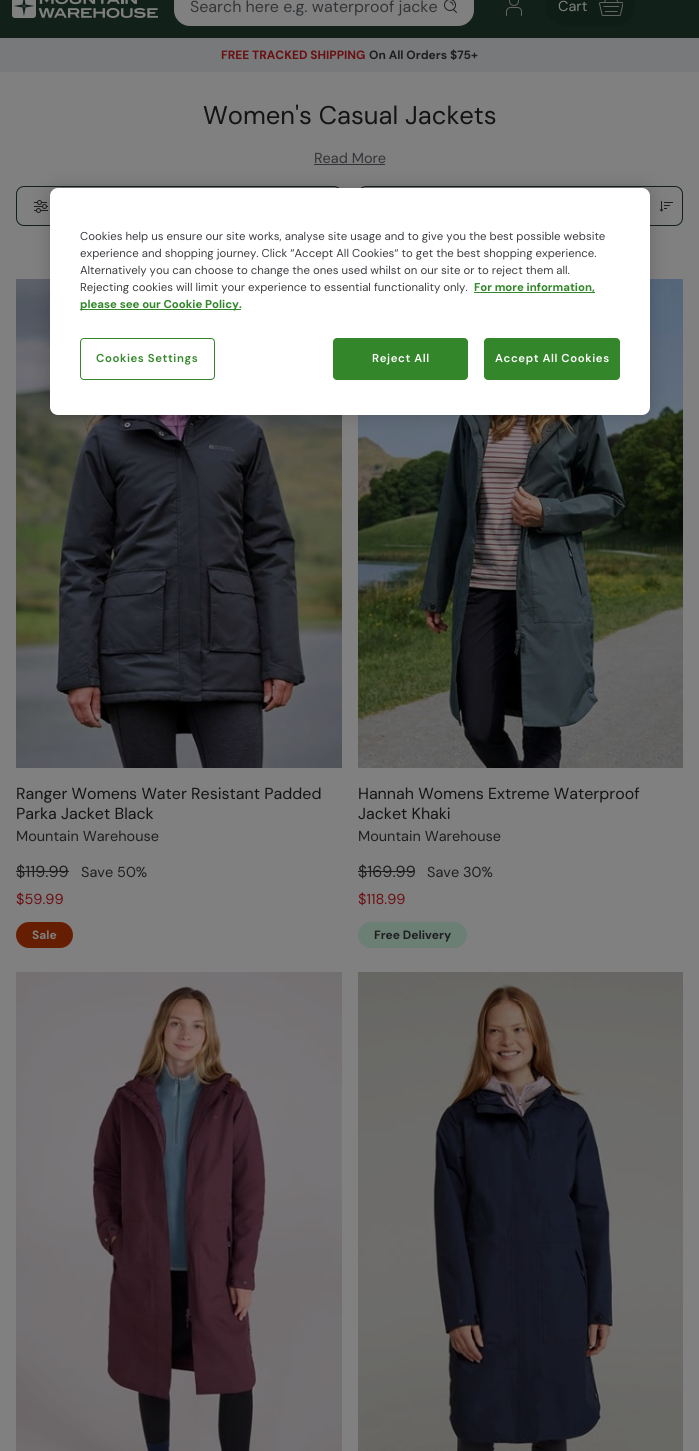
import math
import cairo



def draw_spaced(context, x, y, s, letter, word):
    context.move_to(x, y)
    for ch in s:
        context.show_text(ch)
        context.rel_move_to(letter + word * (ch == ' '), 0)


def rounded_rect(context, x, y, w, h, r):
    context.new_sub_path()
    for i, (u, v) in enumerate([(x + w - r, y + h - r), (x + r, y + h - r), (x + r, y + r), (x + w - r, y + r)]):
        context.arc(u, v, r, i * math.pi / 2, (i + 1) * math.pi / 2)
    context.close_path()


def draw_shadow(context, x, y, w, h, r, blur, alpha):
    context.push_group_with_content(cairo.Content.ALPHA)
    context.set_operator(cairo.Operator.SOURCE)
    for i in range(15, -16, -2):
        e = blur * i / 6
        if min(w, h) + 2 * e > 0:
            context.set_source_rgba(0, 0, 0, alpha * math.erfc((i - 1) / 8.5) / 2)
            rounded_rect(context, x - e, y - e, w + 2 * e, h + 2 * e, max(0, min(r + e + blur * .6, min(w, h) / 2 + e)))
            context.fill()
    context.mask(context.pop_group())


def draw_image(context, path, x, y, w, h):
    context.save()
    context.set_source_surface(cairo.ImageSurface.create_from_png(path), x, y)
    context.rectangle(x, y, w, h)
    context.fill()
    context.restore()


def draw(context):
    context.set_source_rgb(128 / 255, 128 / 255, 128 / 255)
    context.paint()
    context.set_source_rgb(17 / 255, 33 / 255, 25 / 255)
    context.rectangle(0, 0, 699, 38)
    context.fill()
    draw_image(context, "images/1.png", 12, 0, 146, 18)
    context.set_source_rgb(128 / 255, 128 / 255, 128 / 255)
    rounded_rect(context, 174, -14, 300, 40, 16)
    context.fill()
    draw_image(context, "images/2.png", 444, 0, 13, 13)
    draw_image(context, "images/3.png", 506, 0, 16, 16)
    context.set_source_rgb(14 / 255, 29 / 255, 22 / 255)
    rounded_rect(context, 546, -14, 89, 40, 20)
    context.fill()
    draw_image(context, "images/4.png", 599, 0, 24, 16)
    context.set_source_rgb(119 / 255, 121 / 255, 122 / 255)
    context.rectangle(0, 38, 699, 34)
    context.fill()
    context.set_source_rgb(50 / 255, 52 / 255, 55 / 255)
    context.rectangle(314, 164, 71, 1)
    context.fill()
    rounded_rect(context, 16.5, 186.5, 325, 39, 7.5)
    context.set_source_rgb(17 / 255, 33 / 255, 25 / 255)
    context.set_line_width(1)
    context.stroke()
    draw_image(context, "images/5.png", 34, 200, 14, 13)
    rounded_rect(context, 358.5, 186.5, 324, 39, 7.5)
    context.stroke()
    draw_image(context, "images/6.png", 659, 201, 14, 11)
    draw_image(context, "images/7.png", 16, 279, 326, 489)
    context.set_source_rgb(31 / 255, 31 / 255, 33 / 255)
    context.rectangle(16, 871, 53, 1)
    context.fill()
    context.set_source_rgb(102 / 255, 30 / 255, 2 / 255)
    rounded_rect(context, 16, 922, 57, 26, 13)
    context.fill()
    draw_image(context, "images/8.png", 358, 279, 325, 489)
    context.set_source_rgb(31 / 255, 31 / 255, 33 / 255)
    context.rectangle(358, 871, 57, 1)
    context.fill()
    context.set_source_rgb(107 / 255, 127 / 255, 117 / 255)
    rounded_rect(context, 358, 922, 109, 26, 13)
    context.fill()
    draw_image(context, "images/9.png", 16, 972, 326, 479)
    draw_image(context, "images/10.png", 358, 972, 325, 479)
    context.set_source_rgb(0, 0, 0)
    draw_shadow(context, 50, 188, 600, 227, 8, 9, 0.2)
    context.set_source_rgb(1, 1, 1)
    rounded_rect(context, 50, 188, 600, 227, 8)
    context.fill()
    context.set_source_rgb(51 / 255, 135 / 255, 42 / 255)
    context.rectangle(474, 292, 121, 1)
    context.fill()
    context.rectangle(80, 309, 161, 1)
    context.fill()
    rounded_rect(context, 80.5, 338.5, 134, 41, 3.5)
    context.stroke()
    rounded_rect(context, 333.5, 338.5, 134, 41, 3.5)
    context.fill_preserve()
    context.stroke()
    rounded_rect(context, 484.5, 338.5, 135, 41, 3.5)
    context.fill_preserve()
    context.stroke()
    context.select_font_face("DM Sans")
    context.set_font_size(16)
    context.set_source_rgb(50 / 255, 52 / 255, 55 / 255)
    context.move_to(190, 12)
    context.show_text("Search here e.g. waterproof jacke")
    context.set_font_size(14.5)
    context.set_source_rgb(128 / 255, 128 / 255, 128 / 255)
    context.move_to(558, 11)
    context.show_text("Cart")
    context.select_font_face("DM Sans", cairo.FontSlant.NORMAL, cairo.FontWeight.BOLD)
    context.set_font_size(12)
    context.set_source_rgb(107 / 255, 15 / 255, 18 / 255)
    context.move_to(221, 59)
    context.show_text("FREE TRACKED SHIPPING")
    context.set_source_rgb(31 / 255, 31 / 255, 33 / 255)
    context.move_to(369, 59)
    context.show_text("On All Orders $75+")
    context.select_font_face("DM Sans")
    context.set_font_size(25.6)
    context.set_source_rgb(20 / 255, 20 / 255, 20 / 255)
    context.move_to(203, 124)
    context.show_text("Women's Casual Jackets")
    context.set_font_size(14.5)
    context.set_source_rgb(50 / 255, 52 / 255, 55 / 255)
    context.move_to(314, 163)
    context.show_text("Read More")
    context.set_font_size(16)
    context.set_source_rgb(20 / 255, 20 / 255, 20 / 255)
    context.move_to(16, 799)
    context.show_text("Ranger Womens Water Resistant Padded")
    context.move_to(16, 819)
    context.show_text("Parka Jacket Black")
    context.set_font_size(14.5)
    context.set_source_rgb(31 / 255, 31 / 255, 33 / 255)
    context.move_to(16, 841)
    context.show_text("Mountain Warehouse")
    context.set_font_size(16)
    context.move_to(16, 877)
    context.show_text("$119.99")
    context.set_font_size(14.5)
    context.move_to(81, 877)
    context.show_text("Save 50%")
    context.set_source_rgb(107 / 255, 15 / 255, 18 / 255)
    context.move_to(16, 904)
    context.show_text("$59.99")
    context.select_font_face("DM Sans", cairo.FontSlant.NORMAL, cairo.FontWeight.BOLD)
    context.set_font_size(12)
    context.set_source_rgb(128 / 255, 128 / 255, 128 / 255)
    context.move_to(32, 939)
    context.show_text("Sale")
    context.select_font_face("DM Sans")
    context.set_font_size(16)
    context.set_source_rgb(20 / 255, 20 / 255, 20 / 255)
    context.move_to(358, 799)
    context.show_text("Hannah Womens Extreme Waterproof")
    context.move_to(358, 819)
    context.show_text("Jacket Khaki")
    context.set_font_size(14.5)
    context.set_source_rgb(31 / 255, 31 / 255, 33 / 255)
    context.move_to(358, 841)
    context.show_text("Mountain Warehouse")
    context.set_font_size(16)
    context.move_to(358, 877)
    context.show_text("$169.99")
    context.set_font_size(14.5)
    context.move_to(427, 877)
    context.show_text("Save 30%")
    context.set_source_rgb(107 / 255, 15 / 255, 18 / 255)
    context.move_to(358, 904)
    context.show_text("$118.99")
    context.select_font_face("DM Sans", cairo.FontSlant.NORMAL, cairo.FontWeight.BOLD)
    context.set_font_size(12)
    context.set_source_rgb(31 / 255, 31 / 255, 33 / 255)
    context.move_to(374, 939)
    context.show_text("Free Delivery")
    context.select_font_face("DM Sans")
    context.set_font_size(11.4)
    context.set_source_rgb(61 / 255, 61 / 255, 66 / 255)
    context.move_to(80, 240)
    context.show_text("Cookies help us ensure our site works, analyse site usage and to give you the best possible website")
    context.move_to(80, 257)
    context.show_text("experience and shopping journey. Click “Accept All Cookies“ to get the best shopping experience.")
    context.move_to(80, 274)
    context.show_text("Alternatively you can choose to change the ones used whilst on our site or to reject them all.")
    context.move_to(80, 291)
    context.show_text("Rejecting cookies will limit your experience to essential functionality only.")
    context.select_font_face("DM Sans", cairo.FontSlant.NORMAL, cairo.FontWeight.BOLD)
    context.set_source_rgb(51 / 255, 135 / 255, 42 / 255)
    context.move_to(474, 291)
    context.show_text("For more information,")
    context.move_to(80, 308)
    context.show_text("please see our Cookie Policy.")
    context.select_font_face("DM Sans SemiBold")
    draw_spaced(context, 96, 362, "Cookies Settings", 0.6, 0)
    context.set_source_rgb(1, 1, 1)
    draw_spaced(context, 372, 362, "Reject All", 0.6, 0)
    draw_spaced(context, 495, 362, "Accept All Cookies", 0.6, 0)


surface = cairo.ImageSurface(cairo.Format.RGB24, 699, 1451)
context = cairo.Context(surface)
options = cairo.FontOptions()
options.set_hint_metrics(cairo.HintMetrics.OFF)
options.set_hint_style(cairo.HintStyle.NONE)
context.set_font_options(options)
context.set_miter_limit(4)
draw(context)
surface.write_to_png("out.png")
